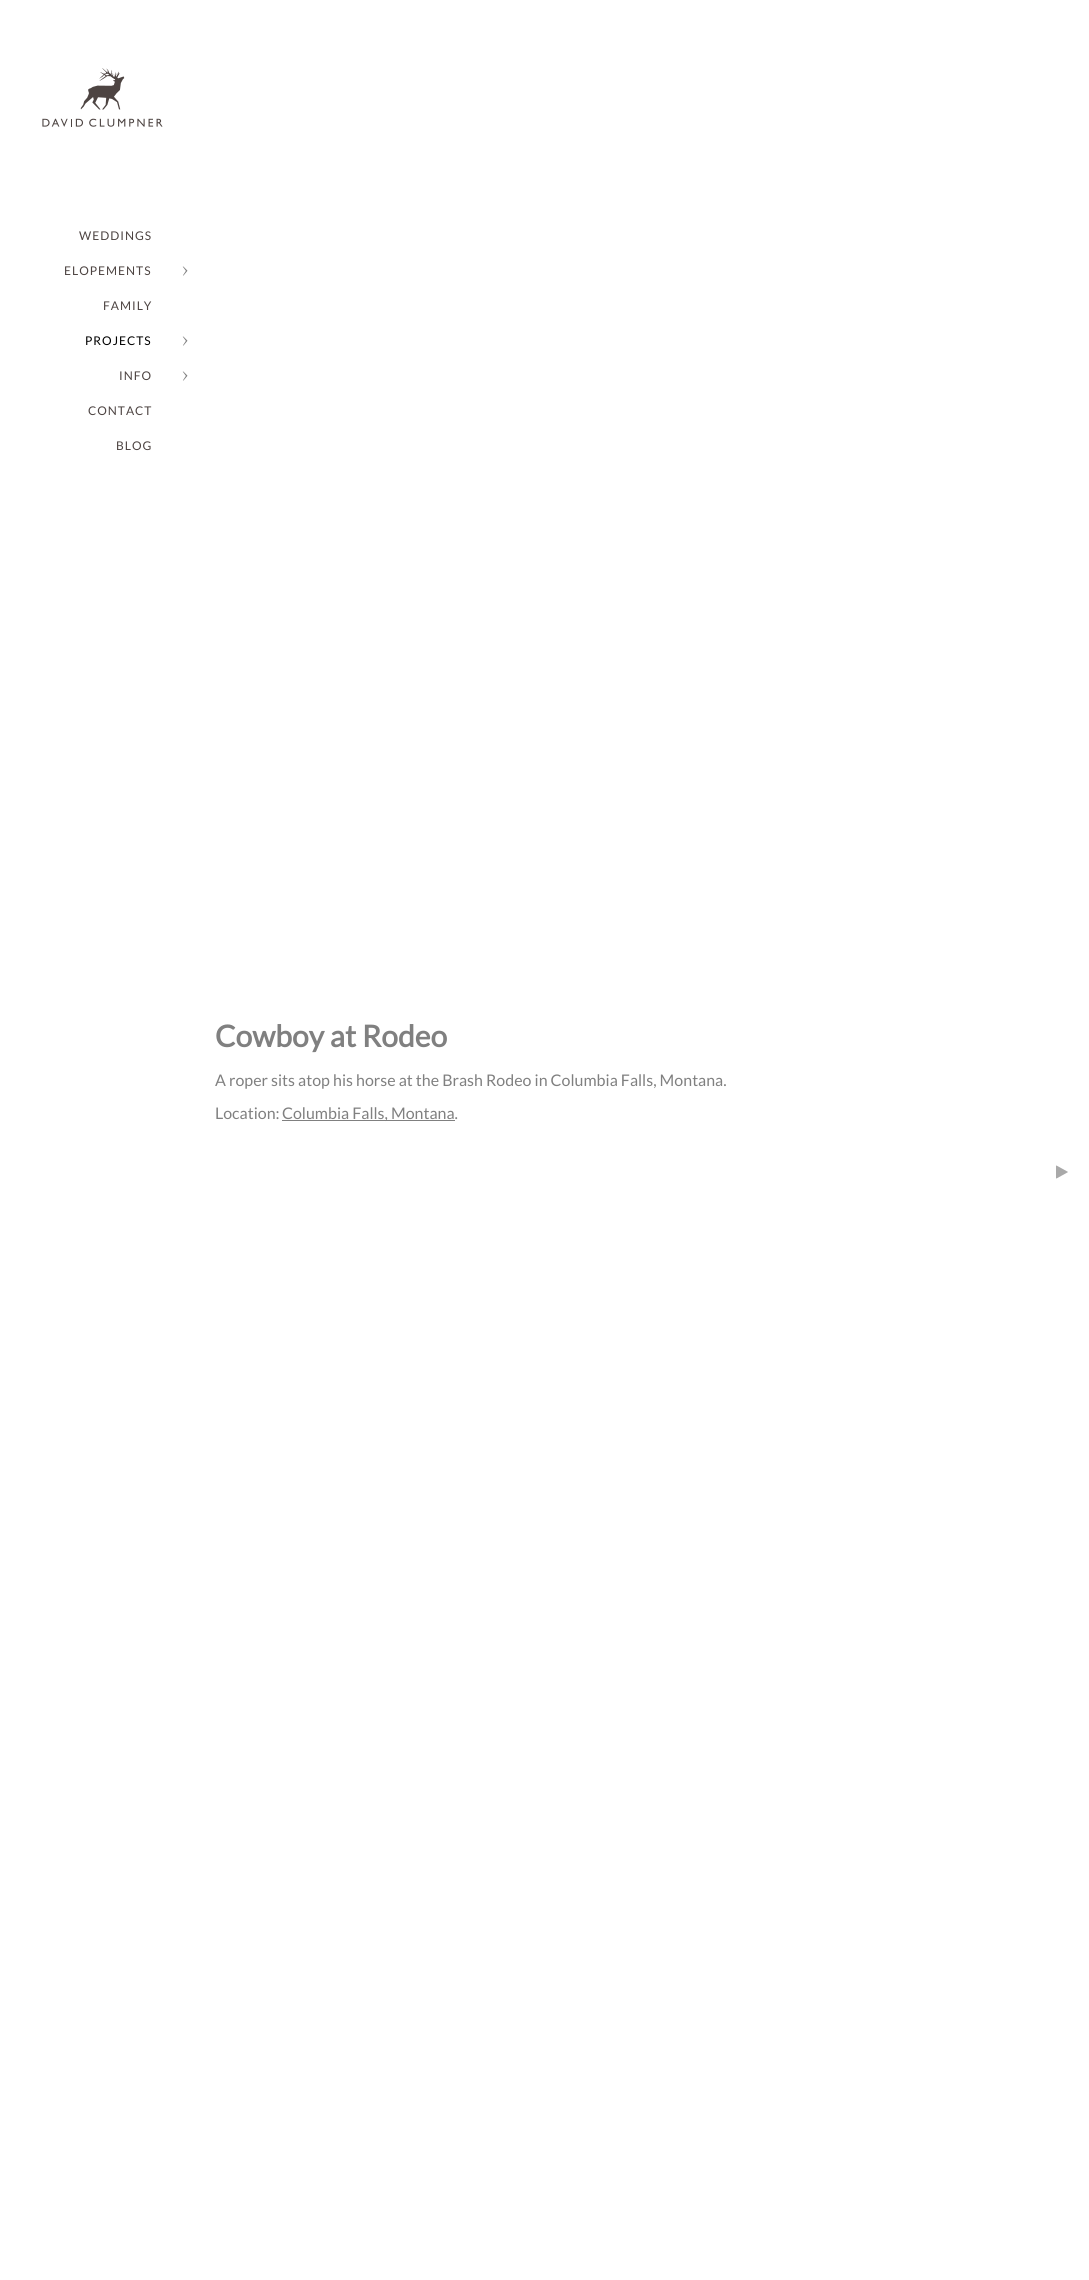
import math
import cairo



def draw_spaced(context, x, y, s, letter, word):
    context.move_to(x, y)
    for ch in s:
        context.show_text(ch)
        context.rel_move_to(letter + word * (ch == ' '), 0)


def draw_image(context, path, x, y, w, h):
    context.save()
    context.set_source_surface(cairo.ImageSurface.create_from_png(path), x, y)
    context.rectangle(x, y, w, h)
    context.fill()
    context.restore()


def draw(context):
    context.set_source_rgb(1, 1, 1)
    context.paint()
    draw_image(context, "images/1.png", 42, 68, 121, 59)
    draw_image(context, "images/2.png", 182, 266, 6, 10)
    draw_image(context, "images/2.png", 182, 336, 6, 10)
    draw_image(context, "images/2.png", 182, 371, 6, 10)
    context.set_source_rgb(128 / 255, 128 / 255, 128 / 255)
    context.rectangle(282, 1120, 173, 1)
    context.fill()
    draw_image(context, "images/3.png", 1056, 1165, 12, 14)
    context.select_font_face("Lato")
    context.set_font_size(12)
    context.set_source_rgb(77 / 255, 68 / 255, 66 / 255)
    draw_spaced(context, 79, 240, "WEDDINGS", 1, 0)
    draw_spaced(context, 64, 275, "ELOPEMENTS", 1, 0)
    draw_spaced(context, 103, 310, "FAMILY", 1, 0)
    context.set_source_rgb(0, 0, 0)
    draw_spaced(context, 85, 345, "PROJECTS", 1, 0)
    context.set_source_rgb(77 / 255, 68 / 255, 66 / 255)
    draw_spaced(context, 119, 380, "INFO", 1, 0)
    draw_spaced(context, 88, 415, "CONTACT", 1, 0)
    draw_spaced(context, 116, 450, "BLOG", 1, 0)
    context.select_font_face("Lato", cairo.FontSlant.NORMAL, cairo.FontWeight.BOLD)
    context.set_font_size(30)
    context.set_source_rgb(128 / 255, 128 / 255, 128 / 255)
    context.move_to(215, 1047)
    context.show_text("Cowboy at Rodeo")
    context.select_font_face("Lato")
    context.set_font_size(16)
    context.move_to(215, 1086)
    context.show_text("A roper sits atop his horse at the Brash Rodeo in Columbia Falls, Montana.")
    context.move_to(215, 1119)
    context.show_text("Location:")
    context.move_to(282, 1119)
    context.show_text("Columbia Falls, Montana.")


surface = cairo.ImageSurface(cairo.Format.RGB24, 1089, 2280)
context = cairo.Context(surface)
options = cairo.FontOptions()
options.set_hint_metrics(cairo.HintMetrics.OFF)
options.set_hint_style(cairo.HintStyle.NONE)
context.set_font_options(options)
context.set_miter_limit(4)
draw(context)
surface.write_to_png("out.png")
